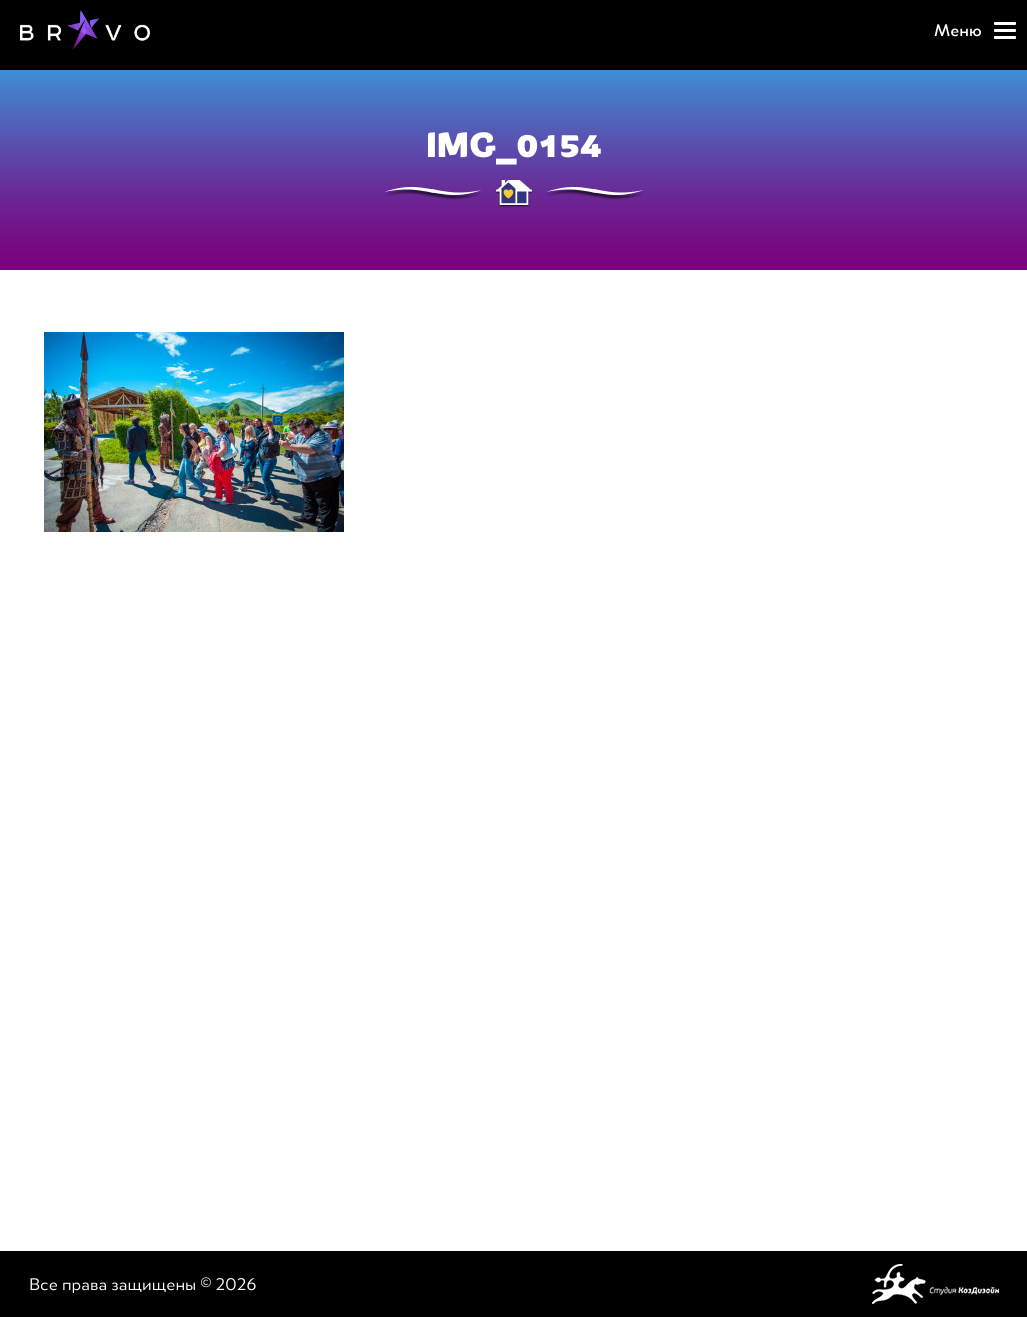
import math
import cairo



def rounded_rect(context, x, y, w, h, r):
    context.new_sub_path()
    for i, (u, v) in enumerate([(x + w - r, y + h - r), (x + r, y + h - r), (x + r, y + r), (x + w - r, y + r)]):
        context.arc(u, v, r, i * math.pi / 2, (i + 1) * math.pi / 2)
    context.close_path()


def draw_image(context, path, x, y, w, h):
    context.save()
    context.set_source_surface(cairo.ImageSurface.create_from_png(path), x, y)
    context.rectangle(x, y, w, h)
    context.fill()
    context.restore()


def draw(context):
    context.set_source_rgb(1, 1, 1)
    context.paint()
    context.set_source_rgb(0, 0, 0)
    context.rectangle(0, 0, 1027, 70)
    context.fill()
    draw_image(context, "images/1.png", 20, 10, 130, 40)
    context.set_source_rgb(1, 1, 1)
    rounded_rect(context, 994, 22, 22, 3, 1)
    context.fill()
    rounded_rect(context, 994, 29, 22, 3, 1)
    context.fill()
    rounded_rect(context, 994, 36, 22, 3, 1)
    context.fill()
    draw_image(context, "images/2.png", 0, 70, 1027, 200)
    draw_image(context, "images/3.png", 385, 180, 258, 27)
    draw_image(context, "images/4.png", 44, 332, 300, 200)
    context.set_source_rgb(0, 0, 0)
    context.rectangle(0, 1251, 1027, 66)
    context.fill()
    draw_image(context, "images/5.png", 872, 1264, 127, 40)
    context.select_font_face("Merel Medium")
    context.set_font_size(18)
    context.set_source_rgb(1, 1, 1)
    context.move_to(934, 36)
    context.show_text("Меню")
    context.select_font_face("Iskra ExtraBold")
    context.set_font_size(38)
    context.move_to(426, 157)
    context.show_text("IMG_0154")
    context.select_font_face("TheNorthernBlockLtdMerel")
    context.set_font_size(18)
    context.move_to(29, 1290)
    context.show_text("Все права защищены © 2026")


surface = cairo.ImageSurface(cairo.Format.RGB24, 1027, 1317)
context = cairo.Context(surface)
options = cairo.FontOptions()
options.set_hint_metrics(cairo.HintMetrics.OFF)
options.set_hint_style(cairo.HintStyle.NONE)
context.set_font_options(options)
context.set_miter_limit(4)
draw(context)
surface.write_to_png("out.png")
